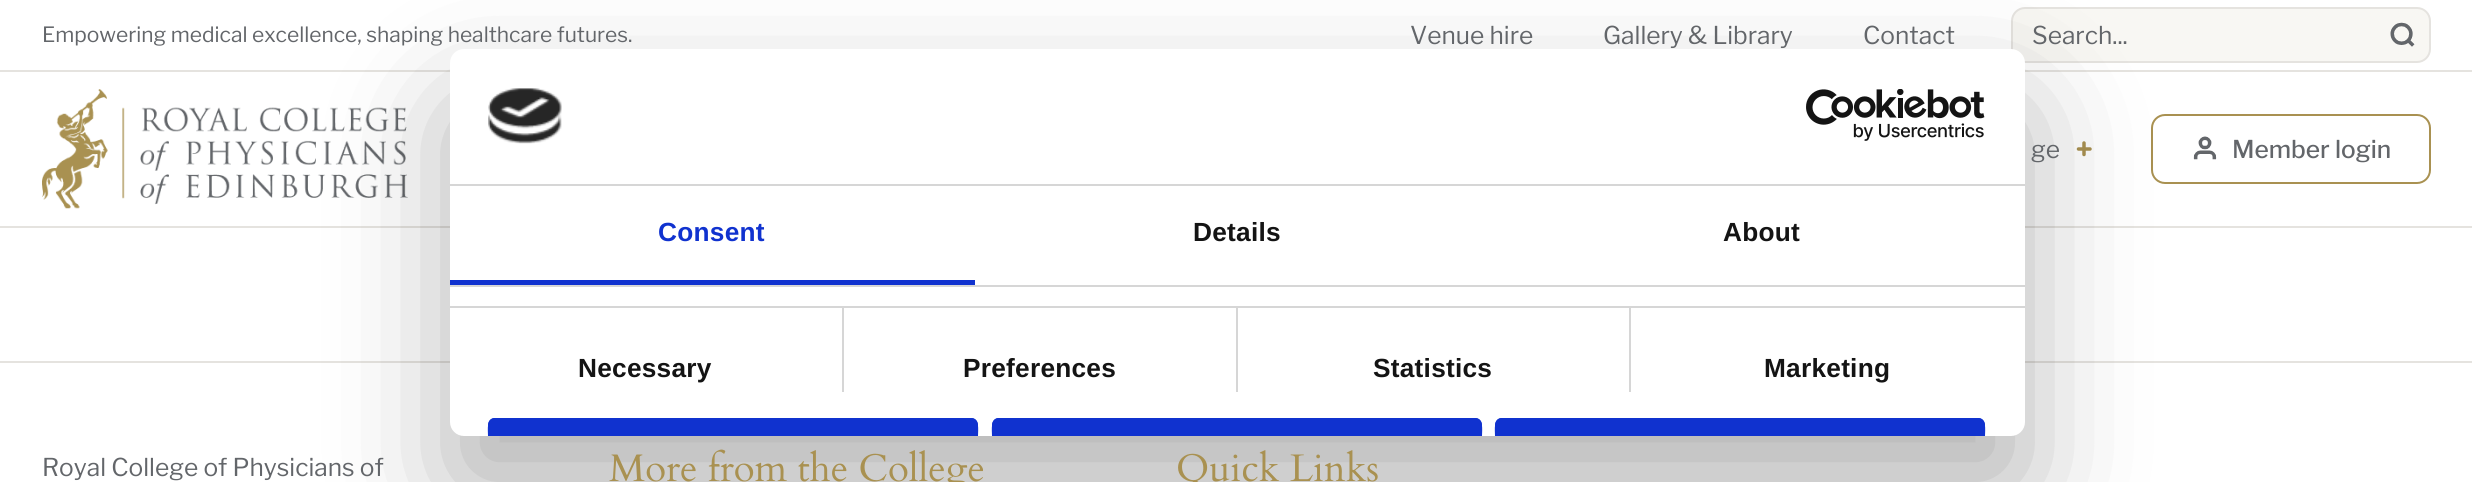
import math
import cairo



def draw_spaced(context, x, y, s, letter, word):
    context.move_to(x, y)
    for ch in s:
        context.show_text(ch)
        context.rel_move_to(letter + word * (ch == ' '), 0)


def rounded_rect(context, x, y, w, h, r):
    context.new_sub_path()
    for i, (u, v) in enumerate([(x + w - r, y + h - r), (x + r, y + h - r), (x + r, y + r), (x + w - r, y + r)]):
        context.arc(u, v, r, i * math.pi / 2, (i + 1) * math.pi / 2)
    context.close_path()


def draw_shadow(context, x, y, w, h, r, blur, alpha):
    context.push_group_with_content(cairo.Content.ALPHA)
    context.set_operator(cairo.Operator.SOURCE)
    for i in range(15, -16, -2):
        e = blur * i / 6
        if min(w, h) + 2 * e > 0:
            context.set_source_rgba(0, 0, 0, alpha * math.erfc((i - 1) / 8.5) / 2)
            rounded_rect(context, x - e, y - e, w + 2 * e, h + 2 * e, max(0, min(r + e + blur * .6, min(w, h) / 2 + e)))
            context.fill()
    context.mask(context.pop_group())


def draw_image(context, path, x, y, w, h):
    context.save()
    context.set_source_surface(cairo.ImageSurface.create_from_png(path), x, y)
    context.rectangle(x, y, w, h)
    context.fill()
    context.restore()


def draw(context):
    context.set_source_rgb(1, 1, 1)
    context.paint()
    context.set_source_rgb(229 / 255, 227 / 255, 223 / 255)
    context.rectangle(0, 70, 2472, 2)
    context.fill()
    context.set_source_rgb(248 / 255, 247 / 255, 243 / 255)
    rounded_rect(context, 2012, 8, 418, 54, 13)
    context.fill_preserve()
    context.set_source_rgb(229 / 255, 227 / 255, 223 / 255)
    context.stroke()
    draw_image(context, "images/1.png", 2390, 22, 25, 25)
    context.rectangle(0, 226, 2472, 2)
    context.fill()
    draw_image(context, "images/2.png", 42, 89, 366, 120)
    context.new_path()
    context.move_to(2084, 143)
    context.line_to(2084, 154.5)
    context.move_to(2078.5, 149)
    context.line_to(2090, 149)
    context.set_source_rgb(169 / 255, 145 / 255, 81 / 255)
    context.set_line_width(3.5)
    context.set_line_cap(cairo.LineCap.ROUND)
    context.set_line_join(cairo.LineJoin.ROUND)
    context.stroke()
    rounded_rect(context, 2152, 115, 278, 68, 13)
    context.set_line_width(2)
    context.set_line_cap(cairo.LineCap.BUTT)
    context.set_line_join(cairo.LineJoin.MITER)
    context.stroke()
    draw_image(context, "images/3.png", 2193, 136, 24, 24)
    context.set_source_rgb(229 / 255, 227 / 255, 223 / 255)
    context.rectangle(0, 361, 2472, 2)
    context.fill()
    context.set_source_rgb(0, 0, 0)
    draw_shadow(context, 450, 105, 1575, 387, 14, 59.5, 0.3)
    context.set_source_rgb(1, 1, 1)
    rounded_rect(context, 450, 49, 1575, 387, 14)
    context.fill()
    context.set_source_rgb(214 / 255, 214 / 255, 214 / 255)
    context.rectangle(450, 184, 1575, 2)
    context.fill()
    draw_image(context, "images/4.png", 488, 88, 74, 56)
    draw_image(context, "images/5.png", 1806, 89, 179, 52)
    context.rectangle(450, 285, 1575, 2)
    context.fill()
    context.set_source_rgb(16 / 255, 50 / 255, 207 / 255)
    context.rectangle(450, 280, 525, 5)
    context.fill()
    context.set_source_rgb(214 / 255, 214 / 255, 214 / 255)
    context.rectangle(450, 306, 1575, 2)
    context.fill()
    context.rectangle(842, 308, 2, 84)
    context.fill()
    context.rectangle(1236, 308, 2, 84)
    context.fill()
    context.rectangle(1629, 308, 2, 84)
    context.fill()
    context.set_source_rgb(16 / 255, 50 / 255, 207 / 255)
    context.new_path()
    context.move_to(495, 418)
    context.line_to(971, 418)
    context.curve_to(975, 418, 978, 421, 978, 425)
    context.line_to(978, 436)
    context.line_to(488, 436)
    context.line_to(488, 425)
    context.curve_to(488, 421, 491, 418, 495, 418)
    context.close_path()
    context.fill()
    context.new_path()
    context.move_to(495, 418)
    context.curve_to(486, 418, 488, 430, 488, 436)
    context.line_to(492, 436)
    context.line_to(492, 425)
    context.curve_to(492, 423, 493, 422, 495, 422)
    context.line_to(971, 422)
    context.curve_to(973, 422, 974, 423, 974, 425)
    context.line_to(974, 436)
    context.line_to(978, 436)
    context.curve_to(978, 430, 980, 418, 971, 418)
    context.close_path()
    context.fill()
    context.new_path()
    context.move_to(999, 418)
    context.line_to(1475, 418)
    context.curve_to(1479, 418, 1482, 421, 1482, 425)
    context.line_to(1482, 436)
    context.line_to(992, 436)
    context.line_to(992, 425)
    context.curve_to(992, 421, 995, 418, 999, 418)
    context.close_path()
    context.fill()
    context.new_path()
    context.move_to(999, 418)
    context.curve_to(990, 418, 992, 430, 992, 436)
    context.line_to(996, 436)
    context.line_to(996, 425)
    context.curve_to(996, 423, 997, 422, 999, 422)
    context.line_to(1475, 422)
    context.curve_to(1477, 422, 1478, 423, 1478, 425)
    context.line_to(1478, 436)
    context.line_to(1482, 436)
    context.curve_to(1482, 430, 1484, 418, 1475, 418)
    context.close_path()
    context.fill()
    context.new_path()
    context.move_to(1502, 418)
    context.line_to(1978, 418)
    context.curve_to(1982, 418, 1985, 421, 1985, 425)
    context.line_to(1985, 436)
    context.line_to(1495, 436)
    context.line_to(1495, 425)
    context.curve_to(1495, 421, 1498, 418, 1502, 418)
    context.close_path()
    context.fill()
    context.new_path()
    context.move_to(1502, 418)
    context.curve_to(1493, 418, 1495, 430, 1495, 436)
    context.line_to(1499, 436)
    context.line_to(1499, 425)
    context.curve_to(1499, 423, 1500, 422, 1502, 422)
    context.line_to(1978, 422)
    context.curve_to(1980, 422, 1981, 423, 1981, 425)
    context.line_to(1981, 436)
    context.line_to(1985, 436)
    context.curve_to(1985, 430, 1987, 418, 1978, 418)
    context.close_path()
    context.fill()
    context.select_font_face("Libre Franklin")
    context.set_font_size(21)
    context.set_source_rgb(99 / 255, 102 / 255, 106 / 255)
    context.move_to(42, 42)
    context.show_text("Empowering medical excellence, shaping healthcare futures.")
    context.set_font_size(24.5)
    context.move_to(1410, 44)
    context.show_text("Venue hire")
    context.move_to(1603, 44)
    context.show_text("Gallery & Library")
    context.move_to(1863, 44)
    context.show_text("Contact")
    context.move_to(2032, 44)
    context.show_text("Search...")
    context.move_to(2031, 158)
    context.show_text("ge")
    context.select_font_face("Libre Franklin Medium")
    context.move_to(2232, 158)
    context.show_text("Member login")
    context.select_font_face("Libre Franklin")
    context.move_to(42, 476)
    context.show_text("Royal College of Physicians of")
    context.select_font_face("Cardo")
    context.set_font_size(38.5)
    context.set_source_rgb(169 / 255, 145 / 255, 81 / 255)
    context.move_to(609, 481)
    context.show_text("More from the College")
    context.move_to(1176, 481)
    context.show_text("Quick Links")
    context.select_font_face("Liberation Sans", cairo.FontSlant.NORMAL, cairo.FontWeight.BOLD)
    context.set_font_size(26.25)
    context.set_source_rgb(16 / 255, 50 / 255, 207 / 255)
    draw_spaced(context, 658, 241, "Consent", 0.25, 0)
    context.set_source_rgb(20 / 255, 20 / 255, 20 / 255)
    draw_spaced(context, 1193, 241, "Details", 0.25, 0)
    draw_spaced(context, 1723, 241, "About", 0.25, 0)
    draw_spaced(context, 578, 377, "Necessary", 0.25, 0)
    draw_spaced(context, 963, 377, "Preferences", 0.25, 0)
    draw_spaced(context, 1373, 377, "Statistics", 0.25, 0)
    draw_spaced(context, 1764, 377, "Marketing", 0.25, 0)


surface = cairo.ImageSurface(cairo.Format.RGB24, 2472, 482)
context = cairo.Context(surface)
options = cairo.FontOptions()
options.set_hint_metrics(cairo.HintMetrics.OFF)
options.set_hint_style(cairo.HintStyle.NONE)
context.set_font_options(options)
context.set_miter_limit(4)
draw(context)
surface.write_to_png("out.png")
